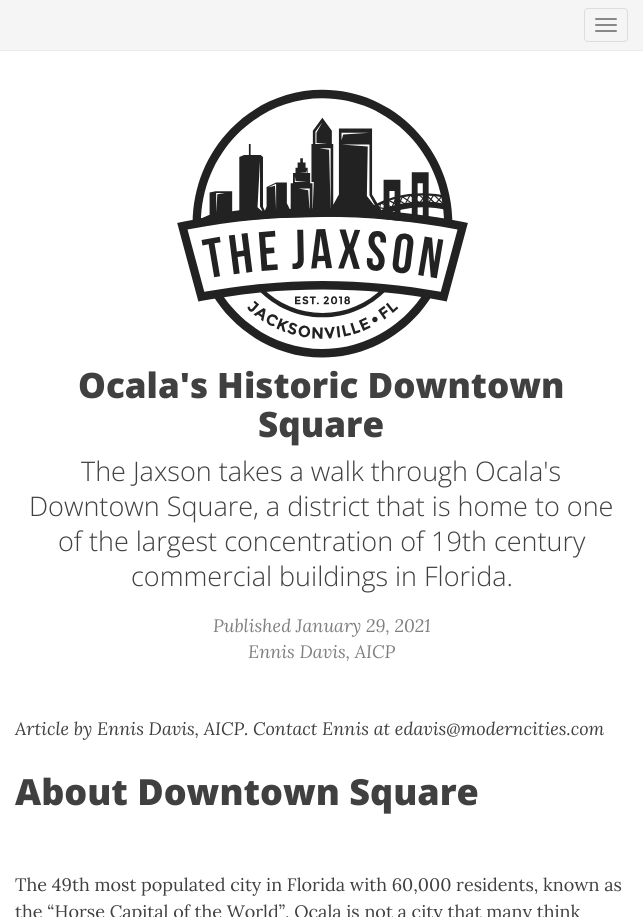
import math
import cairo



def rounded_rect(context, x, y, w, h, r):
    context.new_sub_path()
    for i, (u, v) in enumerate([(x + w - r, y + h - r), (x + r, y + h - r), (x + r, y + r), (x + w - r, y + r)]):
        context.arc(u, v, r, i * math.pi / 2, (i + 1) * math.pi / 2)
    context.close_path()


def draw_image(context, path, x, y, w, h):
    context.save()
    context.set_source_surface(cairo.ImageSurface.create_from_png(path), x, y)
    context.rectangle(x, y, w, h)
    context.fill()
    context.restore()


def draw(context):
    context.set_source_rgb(1, 1, 1)
    context.paint()
    context.set_source_rgb(245 / 255, 245 / 255, 245 / 255)
    context.rectangle(0, 0, 643, 50)
    context.fill()
    context.set_source_rgb(234 / 255, 234 / 255, 234 / 255)
    context.rectangle(0, 50, 643, 1)
    context.fill()
    rounded_rect(context, 584.5, 8.5, 43, 33, 3.5)
    context.set_source_rgb(221 / 255, 221 / 255, 221 / 255)
    context.set_line_width(1)
    context.stroke()
    context.set_source_rgb(136 / 255, 136 / 255, 136 / 255)
    rounded_rect(context, 595, 18, 22, 2, 1)
    context.fill()
    rounded_rect(context, 595, 24, 22, 2, 1)
    context.fill()
    rounded_rect(context, 595, 30, 22, 2, 1)
    context.fill()
    draw_image(context, "images/1.png", 177, 89, 291, 269)
    context.select_font_face("Open Sans ExtraBold")
    context.set_font_size(35)
    context.set_source_rgb(64 / 255, 64 / 255, 64 / 255)
    context.move_to(78, 398)
    context.show_text("Ocala's Historic Downtown")
    context.move_to(258, 437)
    context.show_text("Square")
    context.select_font_face("Open Sans Light")
    context.set_font_size(27)
    context.move_to(81, 481)
    context.show_text("The Jaxson takes a walk through Ocala's")
    context.move_to(29, 516)
    context.show_text("Downtown Square, a district that is home to one")
    context.move_to(58, 551)
    context.show_text("of the largest concentration of 19th century")
    context.move_to(131, 586)
    context.show_text("commercial buildings in Florida.")
    context.select_font_face("Lora", cairo.FontSlant.ITALIC)
    context.set_font_size(18)
    context.set_source_rgb(128 / 255, 128 / 255, 128 / 255)
    context.move_to(213, 632)
    context.show_text("Published January 29, 2021")
    context.move_to(248, 658)
    context.show_text("Ennis Davis, AICP")
    context.set_source_rgb(64 / 255, 64 / 255, 64 / 255)
    context.move_to(15, 735)
    context.show_text("Article by Ennis Davis, AICP. Contact Ennis at edavis@moderncities.com")
    context.select_font_face("Open Sans ExtraBold")
    context.set_font_size(36)
    context.move_to(15, 805)
    context.show_text("About Downtown Square")
    context.select_font_face("Lora")
    context.set_font_size(18)
    context.move_to(15, 891)
    context.show_text("The 49th most populated city in Florida with 60,000 residents, known as")
    context.move_to(15, 918)
    context.show_text("the “Horse Capital of the World”, Ocala is not a city that many think")


surface = cairo.ImageSurface(cairo.Format.RGB24, 643, 917)
context = cairo.Context(surface)
options = cairo.FontOptions()
options.set_hint_metrics(cairo.HintMetrics.OFF)
options.set_hint_style(cairo.HintStyle.NONE)
context.set_font_options(options)
context.set_miter_limit(4)
draw(context)
surface.write_to_png("out.png")
